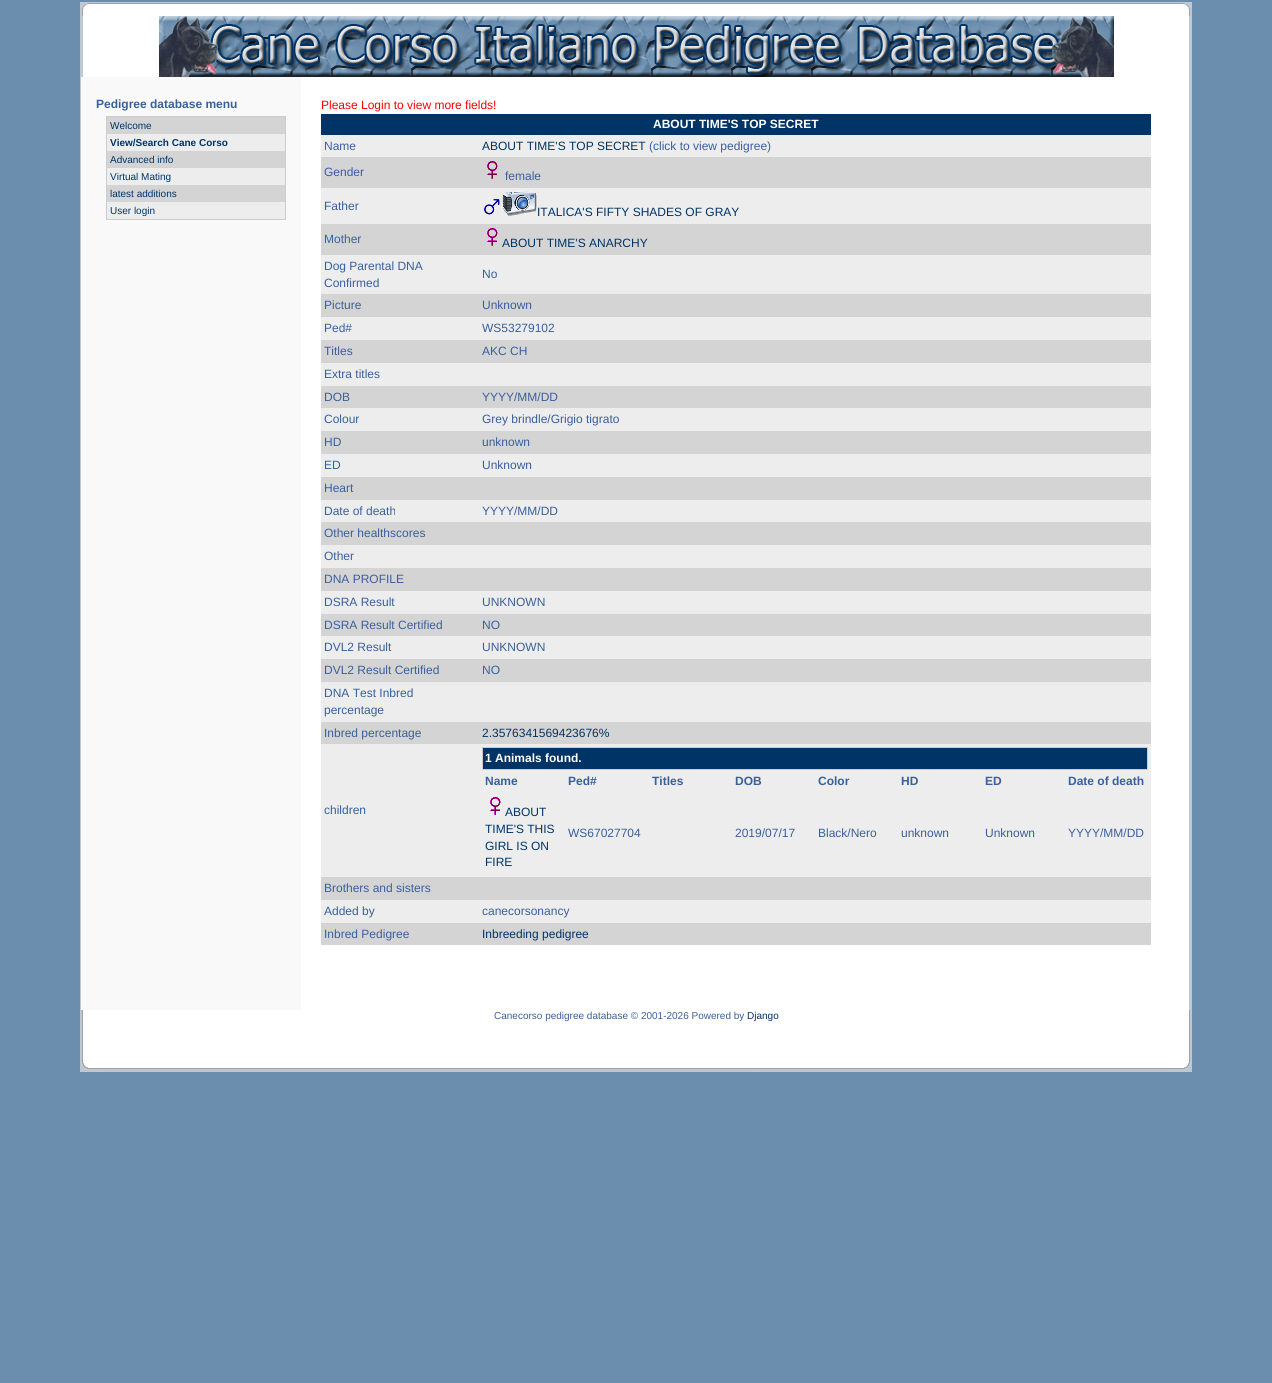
import math
import cairo



def draw_image(context, path, x, y, w, h):
    context.save()
    context.set_source_surface(cairo.ImageSurface.create_from_png(path), x, y)
    context.rectangle(x, y, w, h)
    context.fill()
    context.restore()


def draw(context):
    context.set_source_rgb(107 / 255, 142 / 255, 174 / 255)
    context.paint()
    context.set_source_rgb(1, 1, 1)
    context.rectangle(83, 16, 1106, 994)
    context.fill()
    context.set_source_rgb(188 / 255, 200 / 255, 210 / 255)
    context.rectangle(80, 16, 3, 1056)
    context.fill()
    context.set_source_rgb(190 / 255, 200 / 255, 209 / 255)
    context.rectangle(1189, 16, 3, 994)
    context.fill()
    draw_image(context, "images/1.png", 80, 2, 1112, 14)
    draw_image(context, "images/2.png", 1183, 3, 9, 13)
    draw_image(context, "images/3.png", 159, 16, 955, 61)
    context.set_source_rgb(249 / 255, 249 / 255, 249 / 255)
    context.rectangle(81, 77, 220, 933)
    context.fill()
    context.set_source_rgb(204 / 255, 204 / 255, 204 / 255)
    context.rectangle(106, 116, 180, 1)
    context.fill()
    context.rectangle(285, 116, 1, 104)
    context.fill()
    context.rectangle(106, 219, 180, 1)
    context.fill()
    context.rectangle(106, 116, 1, 104)
    context.fill()
    context.set_source_rgb(212 / 255, 212 / 255, 212 / 255)
    context.rectangle(107, 117, 178, 17)
    context.fill()
    context.set_source_rgb(237 / 255, 237 / 255, 237 / 255)
    context.rectangle(107, 134, 178, 17)
    context.fill()
    context.set_source_rgb(212 / 255, 212 / 255, 212 / 255)
    context.rectangle(107, 151, 178, 17)
    context.fill()
    context.set_source_rgb(237 / 255, 237 / 255, 237 / 255)
    context.rectangle(107, 168, 178, 17)
    context.fill()
    context.set_source_rgb(212 / 255, 212 / 255, 212 / 255)
    context.rectangle(107, 185, 178, 17)
    context.fill()
    context.set_source_rgb(237 / 255, 237 / 255, 237 / 255)
    context.rectangle(107, 202, 178, 17)
    context.fill()
    context.set_source_rgb(0, 51 / 255, 102 / 255)
    context.rectangle(321, 114, 830, 21)
    context.fill()
    context.set_source_rgb(237 / 255, 237 / 255, 237 / 255)
    context.rectangle(321, 135, 830, 22)
    context.fill()
    context.set_source_rgb(212 / 255, 212 / 255, 212 / 255)
    context.rectangle(321, 157, 830, 31)
    context.fill()
    draw_image(context, "images/4.png", 487, 161, 11, 18)
    context.set_source_rgb(237 / 255, 237 / 255, 237 / 255)
    context.rectangle(321, 188, 830, 36)
    context.fill()
    draw_image(context, "images/5.png", 484, 199, 16, 16)
    draw_image(context, "images/6.png", 502, 191, 35, 25)
    context.set_source_rgb(212 / 255, 212 / 255, 212 / 255)
    context.rectangle(321, 224, 830, 31)
    context.fill()
    draw_image(context, "images/4.png", 487, 228, 11, 18)
    context.set_source_rgb(237 / 255, 237 / 255, 237 / 255)
    context.rectangle(321, 255, 830, 39)
    context.fill()
    context.set_source_rgb(212 / 255, 212 / 255, 212 / 255)
    context.rectangle(321, 294, 830, 23)
    context.fill()
    context.set_source_rgb(237 / 255, 237 / 255, 237 / 255)
    context.rectangle(321, 317, 830, 23)
    context.fill()
    context.set_source_rgb(212 / 255, 212 / 255, 212 / 255)
    context.rectangle(321, 340, 830, 23)
    context.fill()
    context.set_source_rgb(237 / 255, 237 / 255, 237 / 255)
    context.rectangle(321, 363, 830, 23)
    context.fill()
    context.set_source_rgb(212 / 255, 212 / 255, 212 / 255)
    context.rectangle(321, 386, 830, 22)
    context.fill()
    context.set_source_rgb(237 / 255, 237 / 255, 237 / 255)
    context.rectangle(321, 408, 830, 23)
    context.fill()
    context.set_source_rgb(212 / 255, 212 / 255, 212 / 255)
    context.rectangle(321, 431, 830, 23)
    context.fill()
    context.set_source_rgb(237 / 255, 237 / 255, 237 / 255)
    context.rectangle(321, 454, 830, 23)
    context.fill()
    context.set_source_rgb(212 / 255, 212 / 255, 212 / 255)
    context.rectangle(321, 477, 830, 23)
    context.fill()
    context.set_source_rgb(237 / 255, 237 / 255, 237 / 255)
    context.rectangle(321, 500, 830, 22)
    context.fill()
    context.set_source_rgb(212 / 255, 212 / 255, 212 / 255)
    context.rectangle(321, 522, 830, 23)
    context.fill()
    context.set_source_rgb(237 / 255, 237 / 255, 237 / 255)
    context.rectangle(321, 545, 830, 23)
    context.fill()
    context.set_source_rgb(212 / 255, 212 / 255, 212 / 255)
    context.rectangle(321, 568, 830, 23)
    context.fill()
    context.set_source_rgb(237 / 255, 237 / 255, 237 / 255)
    context.rectangle(321, 591, 830, 23)
    context.fill()
    context.set_source_rgb(212 / 255, 212 / 255, 212 / 255)
    context.rectangle(321, 614, 830, 22)
    context.fill()
    context.set_source_rgb(237 / 255, 237 / 255, 237 / 255)
    context.rectangle(321, 636, 830, 23)
    context.fill()
    context.set_source_rgb(212 / 255, 212 / 255, 212 / 255)
    context.rectangle(321, 659, 830, 23)
    context.fill()
    context.set_source_rgb(237 / 255, 237 / 255, 237 / 255)
    context.rectangle(321, 682, 830, 40)
    context.fill()
    context.set_source_rgb(212 / 255, 212 / 255, 212 / 255)
    context.rectangle(321, 722, 830, 22)
    context.fill()
    context.set_source_rgb(237 / 255, 237 / 255, 237 / 255)
    context.rectangle(321, 744, 830, 133)
    context.fill()
    context.set_source_rgb(204 / 255, 204 / 255, 204 / 255)
    context.rectangle(482, 747, 666, 1)
    context.fill()
    context.rectangle(1147, 747, 1, 23)
    context.fill()
    context.rectangle(482, 769, 666, 1)
    context.fill()
    context.rectangle(482, 747, 1, 23)
    context.fill()
    context.set_source_rgb(0, 51 / 255, 102 / 255)
    context.rectangle(483, 748, 664, 21)
    context.fill()
    draw_image(context, "images/7.png", 490, 797, 11, 18)
    context.set_source_rgb(212 / 255, 212 / 255, 212 / 255)
    context.rectangle(321, 877, 830, 23)
    context.fill()
    context.set_source_rgb(237 / 255, 237 / 255, 237 / 255)
    context.rectangle(321, 900, 830, 23)
    context.fill()
    context.set_source_rgb(212 / 255, 212 / 255, 212 / 255)
    context.rectangle(321, 923, 830, 22)
    context.fill()
    draw_image(context, "images/8.png", 82, 1010, 1110, 62)
    draw_image(context, "images/9.png", 1173, 1010, 19, 60)
    context.select_font_face("Liberation Sans", cairo.FontSlant.NORMAL, cairo.FontWeight.BOLD)
    context.set_font_size(12)
    context.set_source_rgb(57 / 255, 95 / 255, 157 / 255)
    context.move_to(96, 108)
    context.show_text("Pedigree database menu")
    context.select_font_face("Liberation Sans")
    context.set_font_size(10)
    context.set_source_rgb(0, 51 / 255, 102 / 255)
    context.move_to(110, 129)
    context.show_text("Welcome")
    context.select_font_face("Liberation Sans", cairo.FontSlant.NORMAL, cairo.FontWeight.BOLD)
    context.move_to(110, 146)
    context.show_text("View/Search Cane Corso")
    context.select_font_face("Liberation Sans")
    context.move_to(110, 163)
    context.show_text("Advanced info")
    context.move_to(110, 180)
    context.show_text("Virtual Mating")
    context.move_to(110, 197)
    context.show_text("latest additions")
    context.move_to(110, 214)
    context.show_text("User login")
    context.set_font_size(12)
    context.set_source_rgb(1, 0, 0)
    context.move_to(321, 109)
    context.show_text("Please Login to view more fields!")
    context.select_font_face("Liberation Sans", cairo.FontSlant.NORMAL, cairo.FontWeight.BOLD)
    context.set_source_rgb(1, 1, 1)
    context.move_to(653, 128)
    context.show_text("ABOUT TIME'S TOP SECRET")
    context.select_font_face("Liberation Sans")
    context.set_source_rgb(57 / 255, 95 / 255, 157 / 255)
    context.move_to(324, 150)
    context.show_text("Name")
    context.set_source_rgb(0, 51 / 255, 102 / 255)
    context.move_to(482, 150)
    context.show_text("ABOUT TIME'S TOP SECRET")
    context.set_source_rgb(57 / 255, 95 / 255, 157 / 255)
    context.move_to(649, 150)
    context.show_text("(click to view pedigree)")
    context.move_to(324, 176)
    context.show_text("Gender")
    context.move_to(505, 180)
    context.show_text("female")
    context.move_to(324, 210)
    context.show_text("Father")
    context.set_source_rgb(0, 51 / 255, 102 / 255)
    context.move_to(537, 216)
    context.show_text("ITALICA'S FIFTY SHADES OF GRAY")
    context.set_source_rgb(57 / 255, 95 / 255, 157 / 255)
    context.move_to(324, 243)
    context.show_text("Mother")
    context.set_source_rgb(0, 51 / 255, 102 / 255)
    context.move_to(502, 247)
    context.show_text("ABOUT TIME'S ANARCHY")
    context.set_source_rgb(57 / 255, 95 / 255, 157 / 255)
    context.move_to(324, 270)
    context.show_text("Dog Parental DNA")
    context.move_to(324, 287)
    context.show_text("Confirmed")
    context.move_to(482, 278)
    context.show_text("No")
    context.move_to(324, 309)
    context.show_text("Picture")
    context.move_to(482, 309)
    context.show_text("Unknown")
    context.move_to(324, 332)
    context.show_text("Ped#")
    context.move_to(482, 332)
    context.show_text("WS53279102")
    context.move_to(324, 355)
    context.show_text("Titles")
    context.move_to(482, 355)
    context.show_text("AKC CH")
    context.move_to(324, 378)
    context.show_text("Extra titles")
    context.move_to(324, 401)
    context.show_text("DOB")
    context.move_to(482, 401)
    context.show_text("YYYY/MM/DD")
    context.move_to(324, 423)
    context.show_text("Colour")
    context.move_to(482, 423)
    context.show_text("Grey brindle/Grigio tigrato")
    context.move_to(324, 446)
    context.show_text("HD")
    context.move_to(482, 446)
    context.show_text("unknown")
    context.move_to(324, 469)
    context.show_text("ED")
    context.move_to(482, 469)
    context.show_text("Unknown")
    context.move_to(324, 492)
    context.show_text("Heart")
    context.move_to(324, 515)
    context.show_text("Date of death")
    context.move_to(482, 515)
    context.show_text("YYYY/MM/DD")
    context.move_to(324, 537)
    context.show_text("Other healthscores")
    context.move_to(324, 560)
    context.show_text("Other")
    context.move_to(324, 583)
    context.show_text("DNA PROFILE")
    context.move_to(324, 606)
    context.show_text("DSRA Result")
    context.move_to(482, 606)
    context.show_text("UNKNOWN")
    context.move_to(324, 629)
    context.show_text("DSRA Result Certified")
    context.move_to(482, 629)
    context.show_text("NO")
    context.move_to(324, 651)
    context.show_text("DVL2 Result")
    context.move_to(482, 651)
    context.show_text("UNKNOWN")
    context.move_to(324, 674)
    context.show_text("DVL2 Result Certified")
    context.move_to(482, 674)
    context.show_text("NO")
    context.move_to(324, 697)
    context.show_text("DNA Test Inbred")
    context.move_to(324, 714)
    context.show_text("percentage")
    context.move_to(324, 737)
    context.show_text("Inbred percentage")
    context.set_source_rgb(0, 51 / 255, 102 / 255)
    context.move_to(482, 737)
    context.show_text("2.3576341569423676%")
    context.set_source_rgb(57 / 255, 95 / 255, 157 / 255)
    context.move_to(324, 814)
    context.show_text("children")
    context.select_font_face("Liberation Sans", cairo.FontSlant.NORMAL, cairo.FontWeight.BOLD)
    context.set_source_rgb(1, 1, 1)
    context.move_to(485, 762)
    context.show_text("1 Animals found.")
    context.set_source_rgb(57 / 255, 95 / 255, 157 / 255)
    context.move_to(485, 785)
    context.show_text("Name")
    context.move_to(568, 785)
    context.show_text("Ped#")
    context.move_to(652, 785)
    context.show_text("Titles")
    context.move_to(735, 785)
    context.show_text("DOB")
    context.move_to(818, 785)
    context.show_text("Color")
    context.move_to(901, 785)
    context.show_text("HD")
    context.move_to(985, 785)
    context.show_text("ED")
    context.move_to(1068, 785)
    context.show_text("Date of death")
    context.select_font_face("Liberation Sans")
    context.set_source_rgb(0, 51 / 255, 102 / 255)
    context.move_to(505, 816)
    context.show_text("ABOUT")
    context.move_to(485, 833)
    context.show_text("TIME'S THIS")
    context.move_to(485, 850)
    context.show_text("GIRL IS ON")
    context.move_to(485, 866)
    context.show_text("FIRE")
    context.set_source_rgb(57 / 255, 95 / 255, 157 / 255)
    context.move_to(568, 837)
    context.show_text("WS67027704")
    context.move_to(735, 837)
    context.show_text("2019/07/17")
    context.move_to(818, 837)
    context.show_text("Black/Nero")
    context.move_to(901, 837)
    context.show_text("unknown")
    context.move_to(985, 837)
    context.show_text("Unknown")
    context.move_to(1068, 837)
    context.show_text("YYYY/MM/DD")
    context.move_to(324, 892)
    context.show_text("Brothers and sisters")
    context.move_to(324, 915)
    context.show_text("Added by")
    context.move_to(482, 915)
    context.show_text("canecorsonancy")
    context.move_to(324, 938)
    context.show_text("Inbred Pedigree")
    context.set_source_rgb(0, 51 / 255, 102 / 255)
    context.move_to(482, 938)
    context.show_text("Inbreeding pedigree")
    context.set_font_size(10)
    context.set_source_rgb(57 / 255, 95 / 255, 157 / 255)
    context.move_to(494, 1019)
    context.show_text("Canecorso pedigree database © 2001-2026 Powered by")
    context.set_source_rgb(0, 51 / 255, 102 / 255)
    context.move_to(747, 1019)
    context.show_text("Django")


surface = cairo.ImageSurface(cairo.Format.RGB24, 1272, 1383)
context = cairo.Context(surface)
options = cairo.FontOptions()
options.set_hint_metrics(cairo.HintMetrics.OFF)
options.set_hint_style(cairo.HintStyle.NONE)
context.set_font_options(options)
context.set_miter_limit(4)
draw(context)
surface.write_to_png("out.png")
